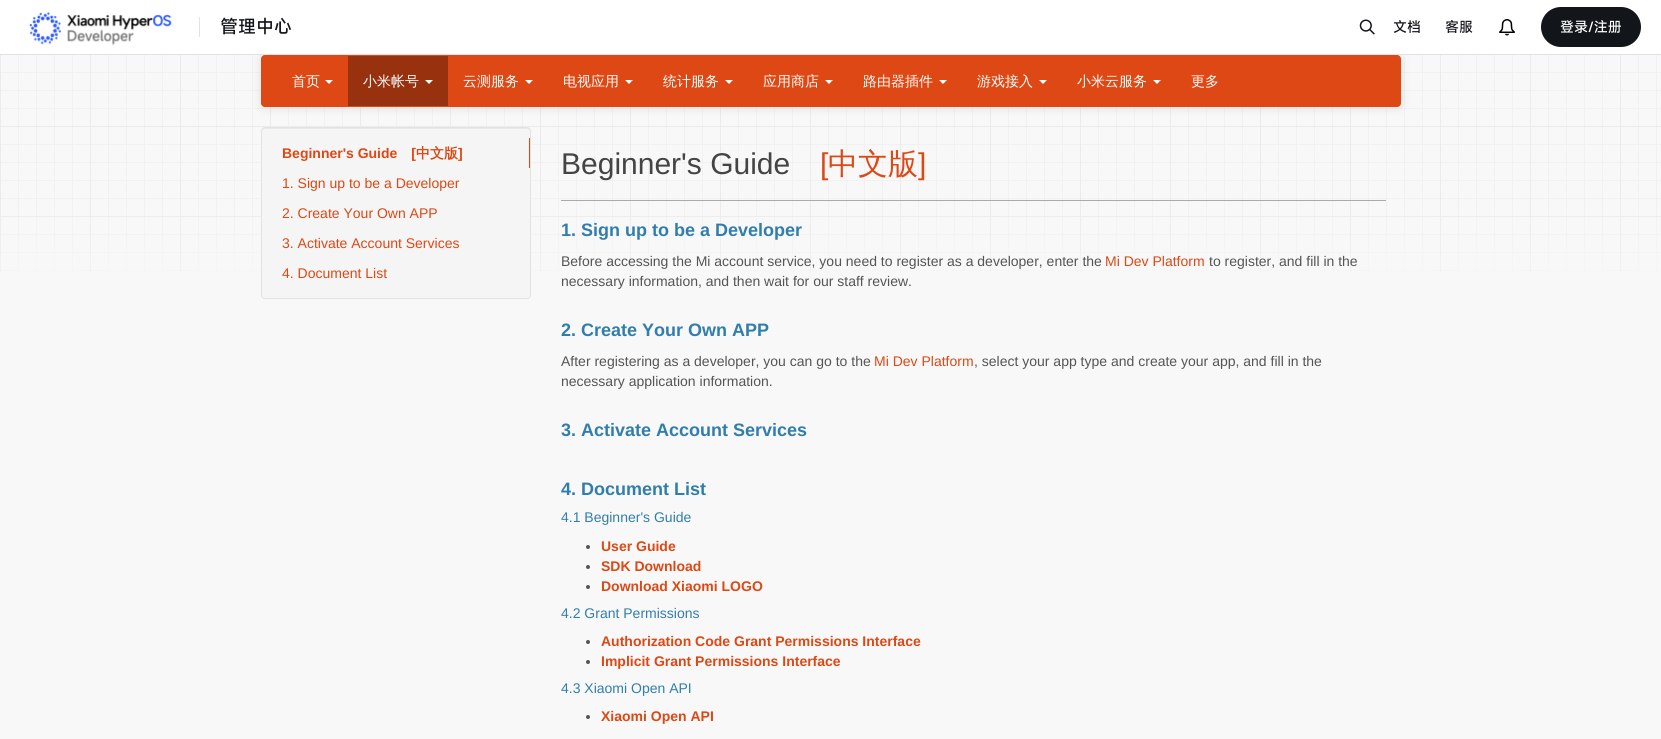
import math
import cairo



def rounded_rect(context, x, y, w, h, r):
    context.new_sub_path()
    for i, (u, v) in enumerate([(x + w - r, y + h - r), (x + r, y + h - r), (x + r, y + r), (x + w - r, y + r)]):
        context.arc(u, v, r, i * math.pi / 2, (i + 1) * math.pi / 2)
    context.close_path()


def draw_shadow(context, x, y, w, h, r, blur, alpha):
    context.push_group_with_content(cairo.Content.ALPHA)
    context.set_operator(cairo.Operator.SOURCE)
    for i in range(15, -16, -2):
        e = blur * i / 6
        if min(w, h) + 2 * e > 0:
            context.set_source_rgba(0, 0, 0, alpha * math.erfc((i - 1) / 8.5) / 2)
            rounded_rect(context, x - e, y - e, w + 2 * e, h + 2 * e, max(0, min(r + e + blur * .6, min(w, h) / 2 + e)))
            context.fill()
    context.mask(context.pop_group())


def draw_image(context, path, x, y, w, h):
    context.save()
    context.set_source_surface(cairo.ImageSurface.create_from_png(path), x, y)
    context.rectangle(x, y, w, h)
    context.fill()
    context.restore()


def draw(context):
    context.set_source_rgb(248 / 255, 248 / 255, 248 / 255)
    context.paint()
    draw_image(context, "images/1.png", 0, 55, 1661, 218)
    context.set_source_rgb(0, 0, 0)
    draw_shadow(context, 261, 56, 1140, 52, 4, 5, 0.1)
    context.set_source_rgb(1, 1, 1)
    context.rectangle(0, 0, 1661, 54)
    context.fill()
    context.set_source_rgb(223 / 255, 226 / 255, 232 / 255)
    context.rectangle(0, 54, 1661, 1)
    context.fill()
    draw_image(context, "images/2.png", 29, 12, 143, 34)
    context.rectangle(199, 17, 1, 20)
    context.fill()
    draw_image(context, "images/3.png", 1359, 19, 16, 16)
    draw_image(context, "images/4.png", 1499, 19, 16, 17)
    context.set_source_rgb(18 / 255, 21 / 255, 26 / 255)
    rounded_rect(context, 1541, 7, 100, 40, 20)
    context.fill()
    context.set_source_rgb(221 / 255, 72 / 255, 20 / 255)
    rounded_rect(context, 261.5, 55.5, 1139, 51, 3.5)
    context.fill_preserve()
    context.set_line_width(1)
    context.stroke()
    context.set_source_rgb(1, 1, 1)
    context.new_path()
    context.move_to(325, 80)
    context.line_to(333, 80)
    context.line_to(329, 84)
    context.close_path()
    context.fill()
    context.set_source_rgb(151 / 255, 49 / 255, 14 / 255)
    context.rectangle(348, 56, 100, 50)
    context.fill()
    context.set_source_rgb(1, 1, 1)
    context.new_path()
    context.move_to(425, 80)
    context.line_to(433, 80)
    context.line_to(429, 84)
    context.close_path()
    context.fill()
    context.new_path()
    context.move_to(525, 80)
    context.line_to(533, 80)
    context.line_to(529, 84)
    context.close_path()
    context.fill()
    context.new_path()
    context.move_to(625, 80)
    context.line_to(633, 80)
    context.line_to(629, 84)
    context.close_path()
    context.fill()
    context.new_path()
    context.move_to(725, 80)
    context.line_to(733, 80)
    context.line_to(729, 84)
    context.close_path()
    context.fill()
    context.new_path()
    context.move_to(825, 80)
    context.line_to(833, 80)
    context.line_to(829, 84)
    context.close_path()
    context.fill()
    context.new_path()
    context.move_to(939, 80)
    context.line_to(947, 80)
    context.line_to(943, 84)
    context.close_path()
    context.fill()
    context.new_path()
    context.move_to(1039, 80)
    context.line_to(1047, 80)
    context.line_to(1043, 84)
    context.close_path()
    context.fill()
    context.new_path()
    context.move_to(1153, 80)
    context.line_to(1161, 80)
    context.line_to(1157, 84)
    context.close_path()
    context.fill()
    context.set_source_rgb(245 / 255, 245 / 255, 245 / 255)
    rounded_rect(context, 261, 127, 270, 172, 4)
    context.fill()
    context.set_source_rgb(233 / 255, 233 / 255, 233 / 255)
    context.new_path()
    context.move_to(265, 129)
    context.line_to(527, 129)
    context.curve_to(529, 129, 530, 130, 530, 132)
    context.curve_to(530, 130, 529, 128, 527, 128)
    context.line_to(265, 128)
    context.curve_to(263, 128, 262, 130, 262, 132)
    context.curve_to(262, 130, 263, 129, 265, 129)
    context.close_path()
    context.fill()
    rounded_rect(context, 261.5, 127.5, 269, 171, 3.5)
    context.set_source_rgb(227 / 255, 227 / 255, 227 / 255)
    context.stroke()
    context.set_source_rgb(221 / 255, 72 / 255, 20 / 255)
    context.rectangle(529, 138, 1, 30)
    context.fill()
    context.set_source_rgb(170 / 255, 170 / 255, 170 / 255)
    context.rectangle(561, 200, 825, 1)
    context.fill()
    context.set_source_rgb(85 / 255, 85 / 255, 85 / 255)
    context.arc(588, 547, 2, 0, 2 * math.pi)
    context.fill()
    context.arc(588, 567, 2, 0, 2 * math.pi)
    context.fill()
    context.arc(588, 587, 2, 0, 2 * math.pi)
    context.fill()
    context.arc(588, 642, 2, 0, 2 * math.pi)
    context.fill()
    context.arc(588, 662, 2, 0, 2 * math.pi)
    context.fill()
    context.arc(588, 717, 2, 0, 2 * math.pi)
    context.fill()
    context.select_font_face("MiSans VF")
    context.set_font_size(18)
    context.set_source_rgb(18 / 255, 21 / 255, 26 / 255)
    context.move_to(220, 33)
    context.show_text("管理中心")
    context.set_font_size(14)
    context.move_to(1393, 32)
    context.show_text("文档")
    context.move_to(1445, 32)
    context.show_text("客服")
    context.set_source_rgb(1, 1, 1)
    context.move_to(1560, 32)
    context.show_text("登录/注册")
    context.select_font_face("WenQuanYi Zen Hei Medium")
    context.move_to(292, 86)
    context.show_text("首页")
    context.move_to(363, 86)
    context.show_text("小米帐号")
    context.move_to(463, 86)
    context.show_text("云测服务")
    context.move_to(563, 86)
    context.show_text("电视应用")
    context.move_to(663, 86)
    context.show_text("统计服务")
    context.move_to(763, 86)
    context.show_text("应用商店")
    context.move_to(863, 86)
    context.show_text("路由器插件")
    context.move_to(977, 86)
    context.show_text("游戏接入")
    context.move_to(1077, 86)
    context.show_text("小米云服务")
    context.move_to(1191, 86)
    context.show_text("更多")
    context.select_font_face("Liberation Sans", cairo.FontSlant.NORMAL, cairo.FontWeight.BOLD)
    context.set_source_rgb(221 / 255, 72 / 255, 20 / 255)
    context.move_to(282, 158)
    context.show_text("Beginner's Guide [")
    context.select_font_face("WenQuanYi Zen Hei", cairo.FontSlant.NORMAL, cairo.FontWeight.BOLD)
    context.move_to(416, 158)
    context.show_text("中文版")
    context.select_font_face("Liberation Sans", cairo.FontSlant.NORMAL, cairo.FontWeight.BOLD)
    context.move_to(458, 158)
    context.show_text("]")
    context.select_font_face("Liberation Sans")
    context.move_to(282, 188)
    context.show_text("1. Sign up to be a Developer")
    context.move_to(282, 218)
    context.show_text("2. Create Your Own APP")
    context.move_to(282, 248)
    context.show_text("3. Activate Account Services")
    context.move_to(282, 278)
    context.show_text("4. Document List")
    context.set_font_size(30)
    context.set_source_rgb(68 / 255, 68 / 255, 68 / 255)
    context.move_to(561, 174)
    context.show_text("Beginner's Guide")
    context.set_source_rgb(221 / 255, 72 / 255, 20 / 255)
    context.move_to(820, 174)
    context.show_text("[")
    context.select_font_face("WenQuanYi Zen Hei Medium")
    context.move_to(828, 174)
    context.show_text("中文版")
    context.select_font_face("Liberation Sans")
    context.move_to(918, 174)
    context.show_text("]")
    context.select_font_face("Liberation Sans", cairo.FontSlant.NORMAL, cairo.FontWeight.BOLD)
    context.set_font_size(18)
    context.set_source_rgb(49 / 255, 126 / 255, 172 / 255)
    context.move_to(561, 236)
    context.show_text("1. Sign up to be a Developer")
    context.select_font_face("Liberation Sans")
    context.set_font_size(14)
    context.set_source_rgb(85 / 255, 85 / 255, 85 / 255)
    context.move_to(561, 266)
    context.show_text("Before accessing the Mi account service, you need to register as a developer, enter the")
    context.set_source_rgb(221 / 255, 72 / 255, 20 / 255)
    context.move_to(1105, 266)
    context.show_text("Mi Dev Platform")
    context.set_source_rgb(85 / 255, 85 / 255, 85 / 255)
    context.move_to(1209, 266)
    context.show_text("to register, and fill in the")
    context.move_to(561, 286)
    context.show_text("necessary information, and then wait for our staff review.")
    context.select_font_face("Liberation Sans", cairo.FontSlant.NORMAL, cairo.FontWeight.BOLD)
    context.set_font_size(18)
    context.set_source_rgb(49 / 255, 126 / 255, 172 / 255)
    context.move_to(561, 336)
    context.show_text("2. Create Your Own APP")
    context.select_font_face("Liberation Sans")
    context.set_font_size(14)
    context.set_source_rgb(85 / 255, 85 / 255, 85 / 255)
    context.move_to(561, 366)
    context.show_text("After registering as a developer, you can go to the")
    context.set_source_rgb(221 / 255, 72 / 255, 20 / 255)
    context.move_to(874, 366)
    context.show_text("Mi Dev Platform")
    context.set_source_rgb(85 / 255, 85 / 255, 85 / 255)
    context.move_to(974, 366)
    context.show_text(", select your app type and create your app, and fill in the")
    context.move_to(561, 386)
    context.show_text("necessary application information.")
    context.select_font_face("Liberation Sans", cairo.FontSlant.NORMAL, cairo.FontWeight.BOLD)
    context.set_font_size(18)
    context.set_source_rgb(49 / 255, 126 / 255, 172 / 255)
    context.move_to(561, 436)
    context.show_text("3. Activate Account Services")
    context.move_to(561, 495)
    context.show_text("4. Document List")
    context.select_font_face("Liberation Sans")
    context.set_font_size(14)
    context.move_to(561, 522)
    context.show_text("4.1 Beginner's Guide")
    context.select_font_face("Liberation Sans", cairo.FontSlant.NORMAL, cairo.FontWeight.BOLD)
    context.set_source_rgb(221 / 255, 72 / 255, 20 / 255)
    context.move_to(601, 551)
    context.show_text("User Guide")
    context.move_to(601, 571)
    context.show_text("SDK Download")
    context.move_to(601, 591)
    context.show_text("Download Xiaomi LOGO")
    context.select_font_face("Liberation Sans")
    context.set_source_rgb(49 / 255, 126 / 255, 172 / 255)
    context.move_to(561, 618)
    context.show_text("4.2 Grant Permissions")
    context.select_font_face("Liberation Sans", cairo.FontSlant.NORMAL, cairo.FontWeight.BOLD)
    context.set_source_rgb(221 / 255, 72 / 255, 20 / 255)
    context.move_to(601, 646)
    context.show_text("Authorization Code Grant Permissions Interface")
    context.move_to(601, 666)
    context.show_text("Implicit Grant Permissions Interface")
    context.select_font_face("Liberation Sans")
    context.set_source_rgb(49 / 255, 126 / 255, 172 / 255)
    context.move_to(561, 693)
    context.show_text("4.3 Xiaomi Open API")
    context.select_font_face("Liberation Sans", cairo.FontSlant.NORMAL, cairo.FontWeight.BOLD)
    context.set_source_rgb(221 / 255, 72 / 255, 20 / 255)
    context.move_to(601, 721)
    context.show_text("Xiaomi Open API")


surface = cairo.ImageSurface(cairo.Format.RGB24, 1661, 739)
context = cairo.Context(surface)
options = cairo.FontOptions()
options.set_hint_metrics(cairo.HintMetrics.OFF)
options.set_hint_style(cairo.HintStyle.NONE)
context.set_font_options(options)
context.set_miter_limit(4)
draw(context)
surface.write_to_png("out.png")
